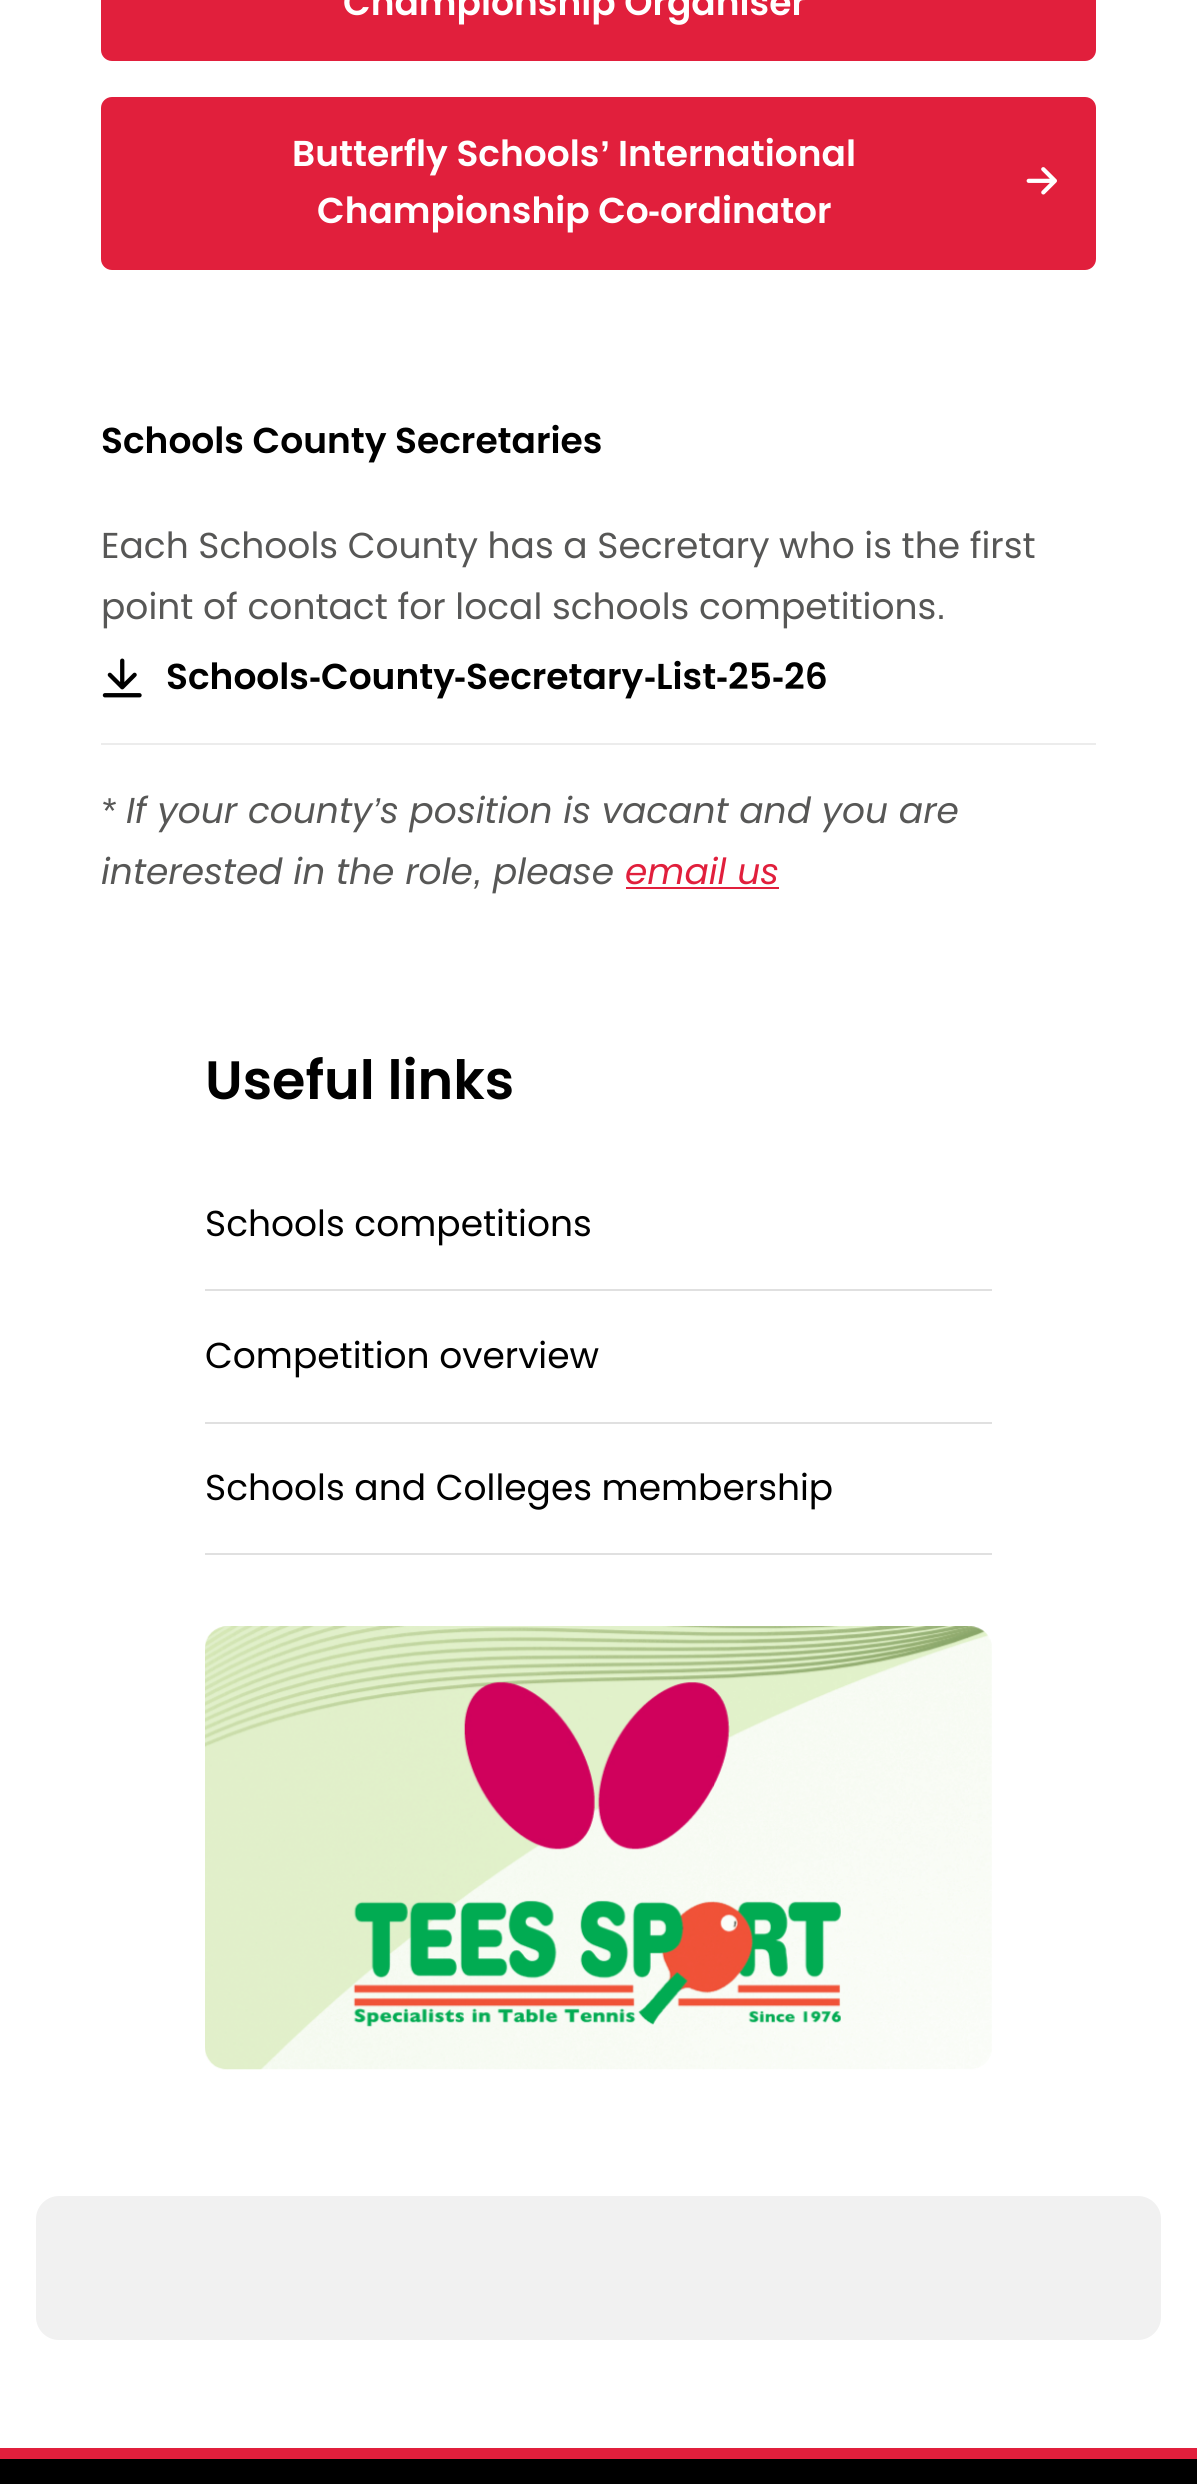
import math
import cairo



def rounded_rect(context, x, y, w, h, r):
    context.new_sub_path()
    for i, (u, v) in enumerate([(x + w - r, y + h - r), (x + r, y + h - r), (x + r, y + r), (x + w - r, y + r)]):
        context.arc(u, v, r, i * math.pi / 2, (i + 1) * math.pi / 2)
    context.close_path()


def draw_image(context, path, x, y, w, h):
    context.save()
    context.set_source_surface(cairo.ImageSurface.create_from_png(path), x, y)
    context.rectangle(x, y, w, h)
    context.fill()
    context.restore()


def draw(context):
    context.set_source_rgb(1, 1, 1)
    context.paint()
    context.set_source_rgb(225 / 255, 31 / 255, 60 / 255)
    rounded_rect(context, 101, -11, 995, 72, 11)
    context.fill()
    rounded_rect(context, 101, 97, 995, 173, 11)
    context.fill()
    draw_image(context, "images/1.png", 1026, 167, 31, 28)
    context.set_source_rgb(236 / 255, 236 / 255, 236 / 255)
    context.rectangle(101, 743, 995, 2)
    context.fill()
    draw_image(context, "images/2.png", 102, 658, 40, 40)
    context.set_source_rgb(225 / 255, 31 / 255, 60 / 255)
    context.rectangle(626, 887, 153, 2)
    context.fill()
    context.set_source_rgb(224 / 255, 224 / 255, 224 / 255)
    context.rectangle(205, 1289, 787, 2)
    context.fill()
    context.rectangle(205, 1422, 787, 2)
    context.fill()
    context.rectangle(205, 1553, 787, 2)
    context.fill()
    draw_image(context, "images/3.png", 205, 1626, 787, 444)
    context.set_source_rgb(241 / 255, 241 / 255, 241 / 255)
    rounded_rect(context, 36, 2196, 1125, 144, 23)
    context.fill()
    context.set_source_rgb(0, 0, 0)
    context.rectangle(0, 2459, 1197, 25)
    context.fill()
    context.set_source_rgb(225 / 255, 31 / 255, 60 / 255)
    context.rectangle(0, 2448, 1197, 11)
    context.fill()
    context.select_font_face("Poppins SemiBold")
    context.set_font_size(36)
    context.set_source_rgb(1, 1, 1)
    context.move_to(343, 15)
    context.show_text("Championship Organiser")
    context.move_to(292, 166)
    context.show_text("Butterfly Schools")
    context.select_font_face("Liberation Sans", cairo.FontSlant.NORMAL, cairo.FontWeight.BOLD)
    context.move_to(600, 166)
    context.show_text("’")
    context.select_font_face("Poppins SemiBold")
    context.move_to(618, 166)
    context.show_text("International")
    context.move_to(317, 223)
    context.show_text("Championship Co")
    context.select_font_face("Liberation Sans", cairo.FontSlant.NORMAL, cairo.FontWeight.BOLD)
    context.move_to(648, 223)
    context.show_text("-")
    context.select_font_face("Poppins SemiBold")
    context.move_to(660, 223)
    context.show_text("ordinator")
    context.set_source_rgb(0, 0, 0)
    context.move_to(101, 453)
    context.show_text("Schools County Secretaries")
    context.select_font_face("Poppins")
    context.set_source_rgb(87 / 255, 87 / 255, 86 / 255)
    context.move_to(101, 558)
    context.show_text("Each Schools County has a Secretary who is the first")
    context.move_to(101, 619)
    context.show_text("point of contact for local schools competitions")
    context.select_font_face("Liberation Sans")
    context.move_to(936, 619)
    context.show_text(".")
    context.select_font_face("Poppins SemiBold")
    context.set_source_rgb(0, 0, 0)
    context.move_to(166, 689)
    context.show_text("Schools")
    context.select_font_face("Liberation Sans", cairo.FontSlant.NORMAL, cairo.FontWeight.BOLD)
    context.move_to(309, 689)
    context.show_text("-")
    context.select_font_face("Poppins SemiBold")
    context.move_to(321, 689)
    context.show_text("County")
    context.select_font_face("Liberation Sans", cairo.FontSlant.NORMAL, cairo.FontWeight.BOLD)
    context.move_to(454, 689)
    context.show_text("-")
    context.select_font_face("Poppins SemiBold")
    context.move_to(466, 689)
    context.show_text("Secretary")
    context.select_font_face("Liberation Sans", cairo.FontSlant.NORMAL, cairo.FontWeight.BOLD)
    context.move_to(644, 689)
    context.show_text("-")
    context.select_font_face("Poppins SemiBold")
    context.move_to(656, 689)
    context.show_text("List")
    context.select_font_face("Liberation Sans", cairo.FontSlant.NORMAL, cairo.FontWeight.BOLD)
    context.move_to(716, 689)
    context.show_text("-")
    context.select_font_face("Poppins SemiBold")
    context.move_to(728, 689)
    context.show_text("25")
    context.select_font_face("Liberation Sans", cairo.FontSlant.NORMAL, cairo.FontWeight.BOLD)
    context.move_to(772, 689)
    context.show_text("-")
    context.select_font_face("Poppins SemiBold")
    context.move_to(784, 689)
    context.show_text("26")
    context.select_font_face("Liberation Sans", cairo.FontSlant.ITALIC)
    context.set_source_rgb(87 / 255, 87 / 255, 86 / 255)
    context.move_to(101, 823)
    context.show_text("*")
    context.select_font_face("Poppins", cairo.FontSlant.ITALIC)
    context.move_to(126, 823)
    context.show_text("If your county")
    context.select_font_face("Liberation Sans", cairo.FontSlant.ITALIC)
    context.move_to(372, 823)
    context.show_text("’")
    context.select_font_face("Poppins", cairo.FontSlant.ITALIC)
    context.move_to(380, 823)
    context.show_text("s position is vacant and you are")
    context.move_to(101, 884)
    context.show_text("interested in the role")
    context.select_font_face("Liberation Sans", cairo.FontSlant.ITALIC)
    context.move_to(473, 884)
    context.show_text(",")
    context.select_font_face("Poppins", cairo.FontSlant.ITALIC)
    context.move_to(493, 884)
    context.show_text("please")
    context.set_source_rgb(225 / 255, 31 / 255, 60 / 255)
    context.move_to(625, 884)
    context.show_text("email us")
    context.select_font_face("Poppins SemiBold")
    context.set_font_size(54)
    context.set_source_rgb(0, 0, 0)
    context.move_to(205, 1099)
    context.show_text("Useful links")
    context.select_font_face("Poppins")
    context.set_font_size(36)
    context.move_to(205, 1236)
    context.show_text("Schools competitions")
    context.move_to(205, 1368)
    context.show_text("Competition overview")
    context.move_to(205, 1500)
    context.show_text("Schools and Colleges membership")


surface = cairo.ImageSurface(cairo.Format.RGB24, 1197, 2484)
context = cairo.Context(surface)
options = cairo.FontOptions()
options.set_hint_metrics(cairo.HintMetrics.OFF)
options.set_hint_style(cairo.HintStyle.NONE)
context.set_font_options(options)
context.set_miter_limit(4)
draw(context)
surface.write_to_png("out.png")
